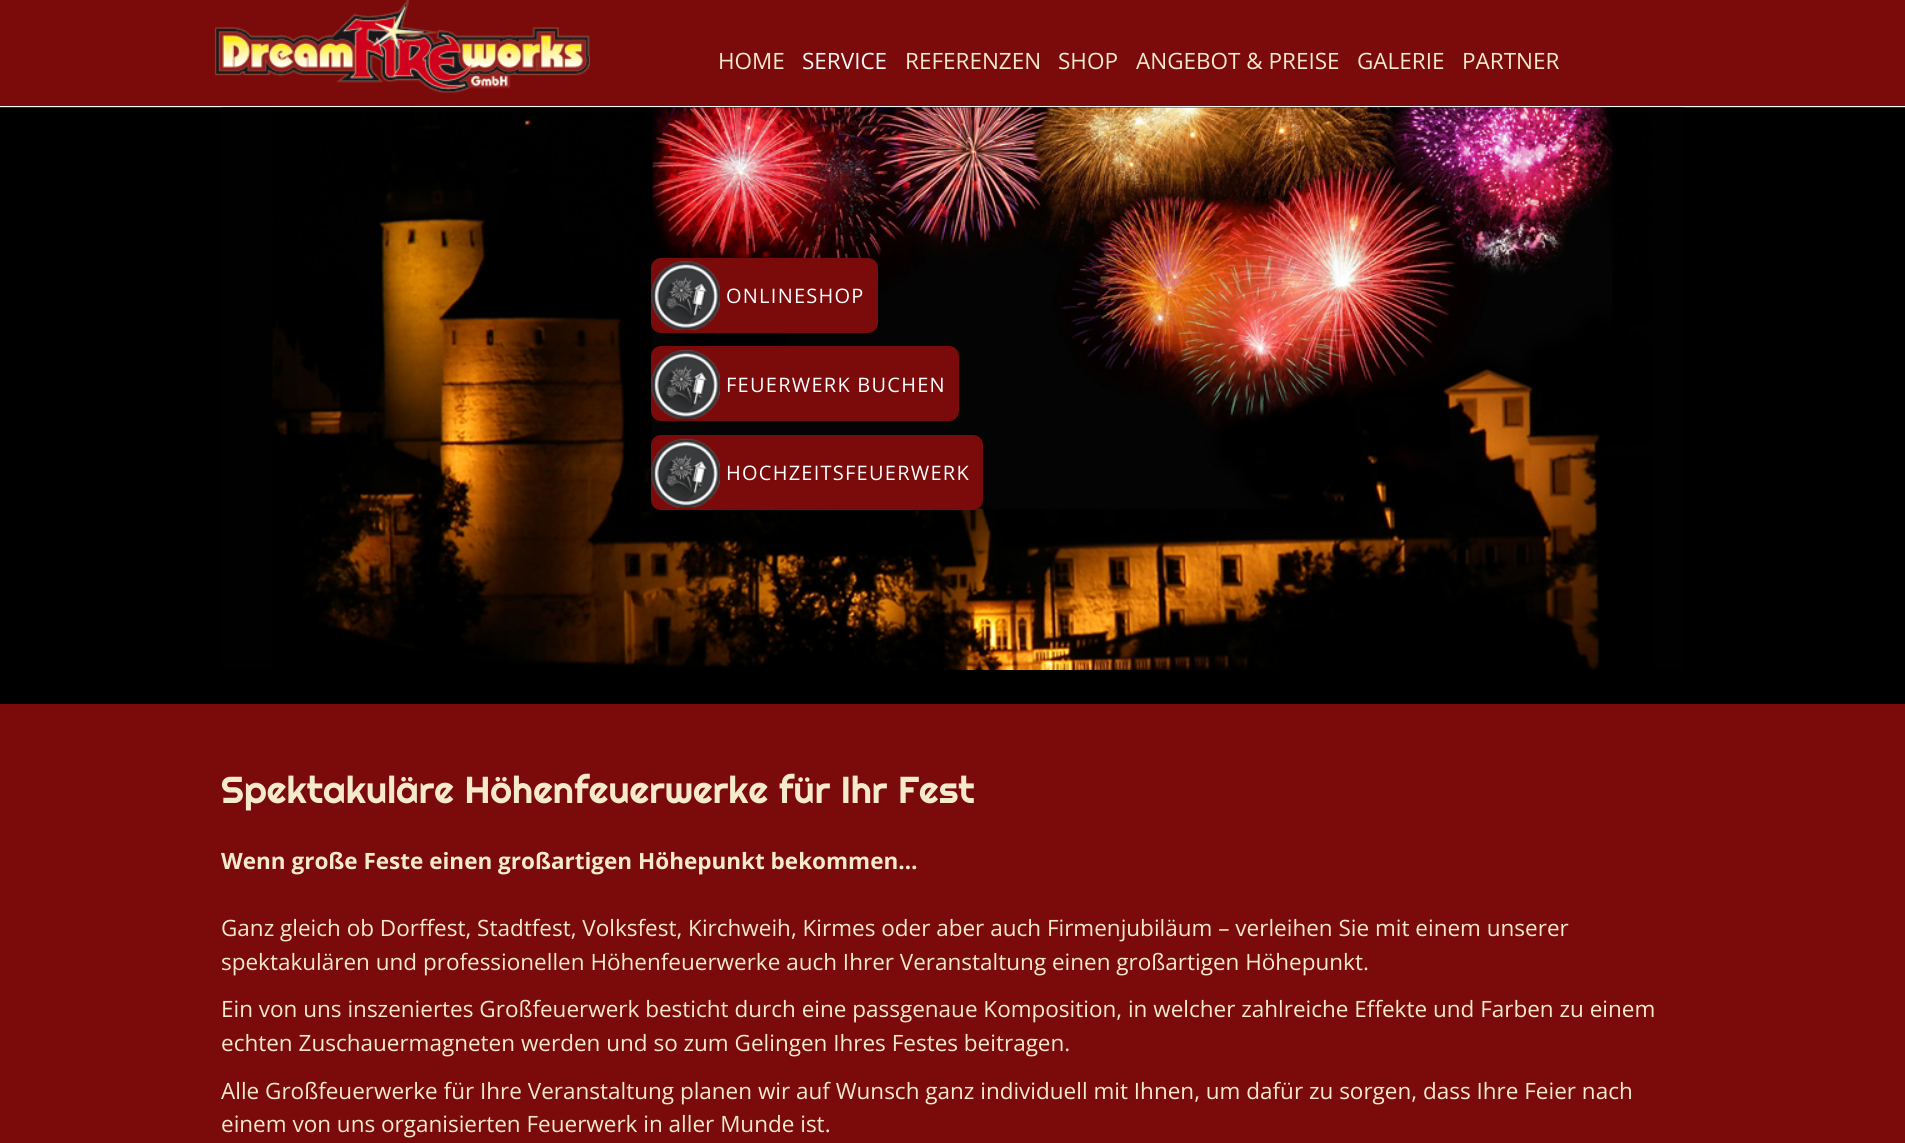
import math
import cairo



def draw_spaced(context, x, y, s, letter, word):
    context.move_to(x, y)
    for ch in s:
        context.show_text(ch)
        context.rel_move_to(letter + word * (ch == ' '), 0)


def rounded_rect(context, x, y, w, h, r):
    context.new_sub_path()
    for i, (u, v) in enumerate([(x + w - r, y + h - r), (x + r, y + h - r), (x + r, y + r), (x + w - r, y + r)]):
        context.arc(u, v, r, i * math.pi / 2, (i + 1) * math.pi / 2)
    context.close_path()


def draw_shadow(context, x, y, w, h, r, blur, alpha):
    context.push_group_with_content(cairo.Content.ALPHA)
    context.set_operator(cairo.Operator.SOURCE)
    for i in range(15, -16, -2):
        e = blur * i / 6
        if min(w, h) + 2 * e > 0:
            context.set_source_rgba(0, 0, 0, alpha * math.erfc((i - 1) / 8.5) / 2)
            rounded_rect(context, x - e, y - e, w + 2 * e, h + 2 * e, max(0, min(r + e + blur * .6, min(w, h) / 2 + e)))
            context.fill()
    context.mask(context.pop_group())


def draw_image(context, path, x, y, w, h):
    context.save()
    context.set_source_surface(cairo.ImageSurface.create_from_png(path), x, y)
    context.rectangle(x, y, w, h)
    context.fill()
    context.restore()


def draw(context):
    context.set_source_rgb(123 / 255, 10 / 255, 10 / 255)
    context.paint()
    context.set_source_rgb(1, 1, 1)
    context.rectangle(0, 106, 1905, 1)
    context.fill()
    draw_image(context, "images/1.png", 215, 0, 375, 93)
    context.set_source_rgb(0, 0, 0)
    context.rectangle(0, 108, 1905, 596)
    context.fill()
    draw_image(context, "images/2.png", 221, 107, 1463, 563)
    context.set_source_rgb(0, 0, 0)
    draw_shadow(context, 651, 258, 227, 75, 10, 4.5, 0.33)
    context.set_source_rgb(123 / 255, 10 / 255, 10 / 255)
    rounded_rect(context, 651, 258, 227, 75, 10)
    context.fill()
    draw_image(context, "images/3.png", 651, 261, 69, 69)
    rounded_rect(context, 651, 346, 308, 75, 10)
    context.fill()
    draw_image(context, "images/4.png", 651, 350, 69, 69)
    rounded_rect(context, 651, 435, 332, 75, 10)
    context.fill()
    draw_image(context, "images/5.png", 651, 438, 69, 70)
    context.select_font_face("Open Sans")
    context.set_font_size(22.5)
    context.set_source_rgb(245 / 255, 234 / 255, 204 / 255)
    context.move_to(718, 69)
    context.show_text("HOME")
    context.set_source_rgb(247 / 255, 247 / 255, 247 / 255)
    context.move_to(802, 69)
    context.show_text("SERVICE")
    context.set_source_rgb(245 / 255, 234 / 255, 204 / 255)
    context.move_to(905, 69)
    context.show_text("REFERENZEN")
    context.move_to(1058, 69)
    context.show_text("SHOP")
    context.move_to(1136, 69)
    context.show_text("ANGEBOT & PREISE")
    context.move_to(1357, 69)
    context.show_text("GALERIE")
    context.move_to(1462, 69)
    context.show_text("PARTNER")
    context.set_font_size(20)
    context.set_source_rgb(1, 1, 1)
    draw_spaced(context, 726, 303, "ONLINESHOP", 1.25, 0)
    draw_spaced(context, 726, 392, "FEUERWERK BUCHEN", 1.25, 0)
    draw_spaced(context, 726, 480, "HOCHZEITSFEUERWERK", 1.25, 0)
    context.select_font_face("Righteous")
    context.set_font_size(37.5)
    context.set_source_rgb(245 / 255, 234 / 255, 204 / 255)
    context.move_to(221, 803)
    context.show_text("Spektakuläre Höhenfeuerwerke für Ihr Fest")
    context.select_font_face("Open Sans", cairo.FontSlant.NORMAL, cairo.FontWeight.BOLD)
    context.set_font_size(22.5)
    context.move_to(221, 869)
    context.show_text("Wenn große Feste einen großartigen Höhepunkt bekommen…")
    context.select_font_face("Open Sans")
    context.move_to(221, 936)
    context.show_text("Ganz gleich ob Dorffest, Stadtfest, Volksfest, Kirchweih, Kirmes oder aber auch Firmenjubiläum – verleihen Sie mit einem unserer")
    context.move_to(221, 970)
    context.show_text("spektakulären und professionellen Höhenfeuerwerke auch Ihrer Veranstaltung einen großartigen Höhepunkt.")
    context.move_to(221, 1017)
    context.show_text("Ein von uns inszeniertes Großfeuerwerk besticht durch eine passgenaue Komposition, in welcher zahlreiche Effekte und Farben zu einem")
    context.move_to(221, 1051)
    context.show_text("echten Zuschauermagneten werden und so zum Gelingen Ihres Festes beitragen.")
    context.move_to(221, 1099)
    context.show_text("Alle Großfeuerwerke für Ihre Veranstaltung planen wir auf Wunsch ganz individuell mit Ihnen, um dafür zu sorgen, dass Ihre Feier nach")
    context.move_to(221, 1132)
    context.show_text("einem von uns organisierten Feuerwerk in aller Munde ist.")


surface = cairo.ImageSurface(cairo.Format.RGB24, 1905, 1143)
context = cairo.Context(surface)
options = cairo.FontOptions()
options.set_hint_metrics(cairo.HintMetrics.OFF)
options.set_hint_style(cairo.HintStyle.NONE)
context.set_font_options(options)
context.set_miter_limit(4)
draw(context)
surface.write_to_png("out.png")
